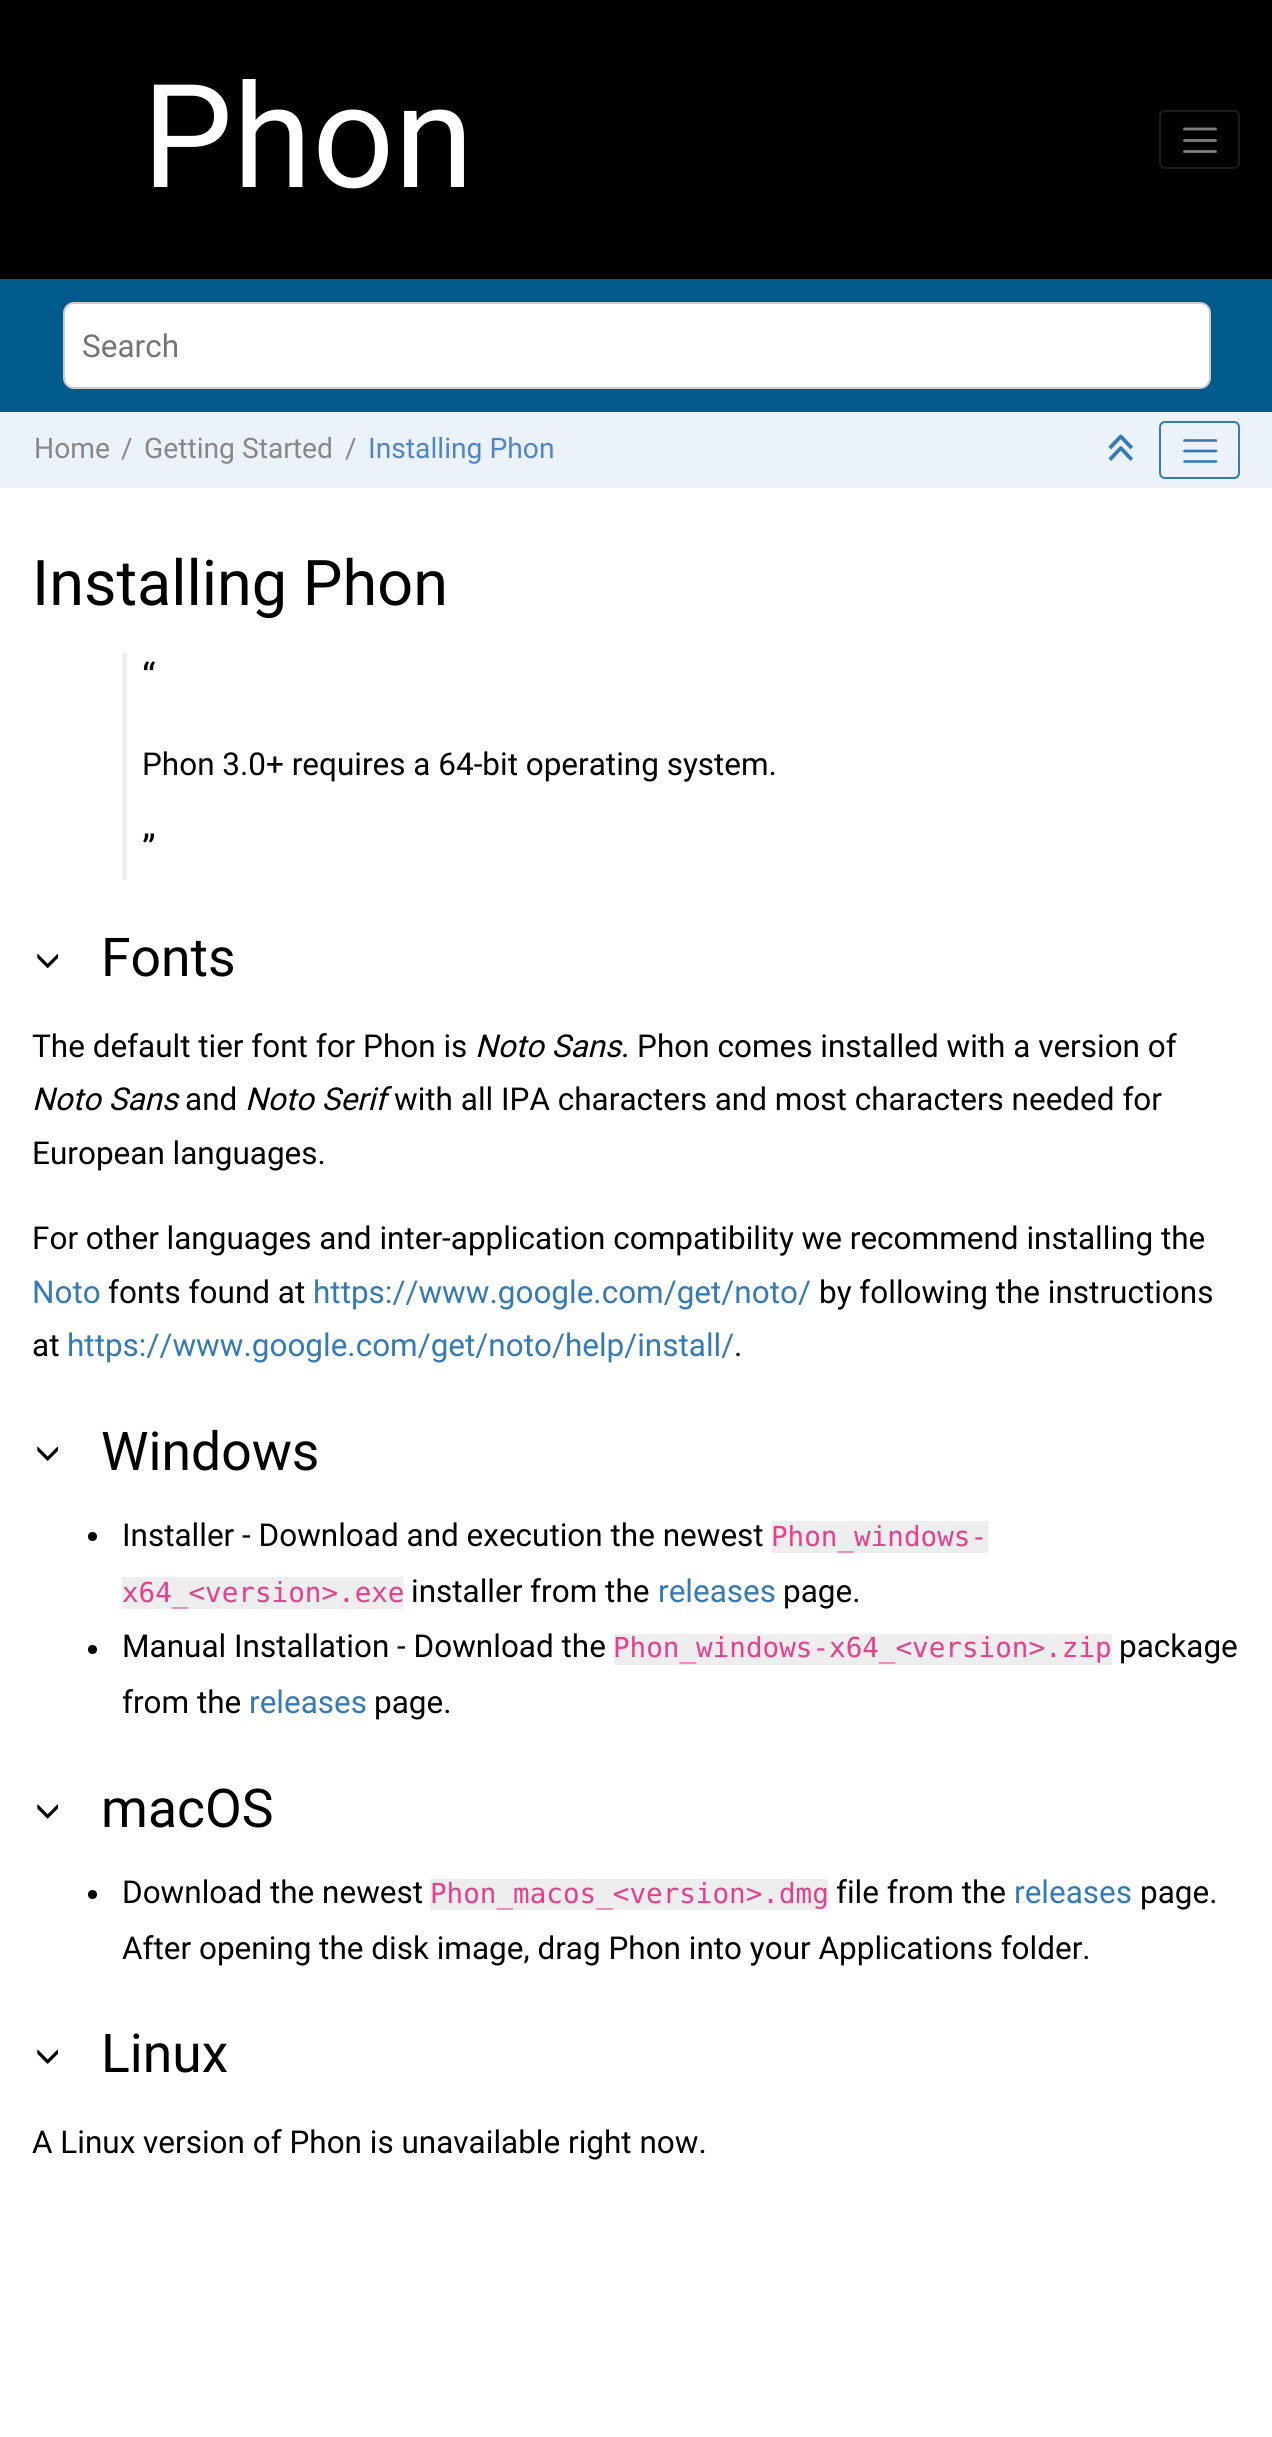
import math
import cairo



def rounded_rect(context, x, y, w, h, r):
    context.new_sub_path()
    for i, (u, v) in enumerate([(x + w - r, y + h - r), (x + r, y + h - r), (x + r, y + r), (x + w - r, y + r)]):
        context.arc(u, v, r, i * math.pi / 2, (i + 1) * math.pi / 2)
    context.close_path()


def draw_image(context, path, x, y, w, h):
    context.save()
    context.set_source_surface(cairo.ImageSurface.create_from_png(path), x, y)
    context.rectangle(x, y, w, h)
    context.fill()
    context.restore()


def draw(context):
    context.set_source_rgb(1, 1, 1)
    context.paint()
    context.set_source_rgb(0, 0, 0)
    context.rectangle(0, 0, 1272, 279)
    context.fill()
    rounded_rect(context, 1160, 111, 79, 57, 5)
    context.set_source_rgb(26 / 255, 26 / 255, 26 / 255)
    context.stroke()
    context.new_path()
    context.move_to(1184.5, 129)
    context.line_to(1215.5, 129)
    context.move_to(1184.5, 140.5)
    context.line_to(1215.5, 140.5)
    context.move_to(1184.5, 151.5)
    context.line_to(1215.5, 151.5)
    context.set_source_rgb(128 / 255, 128 / 255, 128 / 255)
    context.set_line_width(2.8)
    context.set_line_cap(cairo.LineCap.ROUND)
    context.stroke()
    context.set_source_rgb(0, 90 / 255, 140 / 255)
    context.rectangle(0, 279, 1272, 133)
    context.fill()
    context.set_source_rgb(1, 1, 1)
    rounded_rect(context, 64, 303, 1146, 85, 10)
    context.fill_preserve()
    context.set_source_rgb(204 / 255, 204 / 255, 204 / 255)
    context.set_line_width(2)
    context.set_line_cap(cairo.LineCap.BUTT)
    context.stroke()
    context.set_source_rgb(236 / 255, 242 / 255, 249 / 255)
    context.rectangle(0, 412, 1272, 76)
    context.fill()
    draw_image(context, "images/1.png", 1108, 434, 25, 27)
    rounded_rect(context, 1160, 422, 79, 56, 5)
    context.set_source_rgb(52 / 255, 123 / 255, 183 / 255)
    context.stroke()
    context.new_path()
    context.move_to(1184.5, 440.5)
    context.line_to(1216, 440.5)
    context.move_to(1184.5, 451)
    context.line_to(1216, 451)
    context.move_to(1184.5, 461.5)
    context.line_to(1216, 461.5)
    context.set_line_width(2.6)
    context.set_line_cap(cairo.LineCap.ROUND)
    context.stroke()
    context.set_source_rgb(238 / 255, 238 / 255, 238 / 255)
    context.rectangle(122, 653, 5, 227)
    context.fill()
    draw_image(context, "images/2.png", 37, 954, 21, 14)
    draw_image(context, "images/3.png", 37, 1446, 21, 15)
    context.set_source_rgb(0, 0, 0)
    context.arc(92.5, 1536.5, 4.5, 0, 2 * math.pi)
    context.fill()
    context.set_source_rgb(238 / 255, 238 / 255, 238 / 255)
    context.rectangle(772, 1521, 216, 32)
    context.fill()
    context.rectangle(122, 1577, 281, 32)
    context.fill()
    context.set_source_rgb(0, 0, 0)
    context.arc(92.5, 1649.5, 4.5, 0, 2 * math.pi)
    context.fill()
    context.set_source_rgb(238 / 255, 238 / 255, 238 / 255)
    context.rectangle(614, 1634, 498, 31)
    context.fill()
    draw_image(context, "images/4.png", 37, 1804, 21, 15)
    context.set_source_rgb(0, 0, 0)
    context.arc(92.5, 1894.5, 4.5, 0, 2 * math.pi)
    context.fill()
    context.set_source_rgb(238 / 255, 238 / 255, 238 / 255)
    context.rectangle(430, 1879, 398, 31)
    context.fill()
    draw_image(context, "images/3.png", 37, 2049, 21, 15)
    context.select_font_face("Roboto")
    context.set_font_size(144)
    context.set_source_rgb(1, 1, 1)
    context.move_to(142, 187)
    context.show_text("Phon")
    context.set_font_size(31.5)
    context.set_source_rgb(117 / 255, 117 / 255, 117 / 255)
    context.move_to(82, 357)
    context.show_text("Search")
    context.set_font_size(28.25)
    context.set_source_rgb(135 / 255, 135 / 255, 135 / 255)
    context.move_to(34, 458)
    context.show_text("Home")
    context.move_to(121, 458)
    context.show_text("/")
    context.move_to(144, 458)
    context.show_text("Getting Started")
    context.move_to(345, 458)
    context.show_text("/")
    context.set_source_rgb(81 / 255, 133 / 255, 203 / 255)
    context.move_to(368, 458)
    context.show_text("Installing Phon")
    context.set_font_size(63)
    context.set_source_rgb(0, 0, 0)
    context.move_to(32, 605)
    context.show_text("Installing Phon")
    context.set_font_size(38)
    context.move_to(142, 690)
    context.show_text("“")
    context.set_font_size(31.5)
    context.move_to(142, 775)
    context.show_text("Phon 3.0+ requires a 64-bit operating system.")
    context.set_font_size(38)
    context.move_to(142, 862)
    context.show_text("”")
    context.set_font_size(53.5)
    context.move_to(101, 976)
    context.show_text("Fonts")
    context.set_font_size(31.5)
    context.move_to(32, 1057)
    context.show_text("The default tier font for Phon is")
    context.select_font_face("Roboto", cairo.FontSlant.ITALIC)
    context.move_to(475, 1057)
    context.show_text("Noto Sans")
    context.select_font_face("Roboto")
    context.move_to(621, 1057)
    context.show_text(". Phon comes installed with a version of")
    context.select_font_face("Roboto", cairo.FontSlant.ITALIC)
    context.move_to(32, 1110)
    context.show_text("Noto Sans")
    context.select_font_face("Roboto")
    context.move_to(185, 1110)
    context.show_text("and")
    context.select_font_face("Roboto", cairo.FontSlant.ITALIC)
    context.move_to(245, 1110)
    context.show_text("Noto Serif")
    context.select_font_face("Roboto")
    context.move_to(394, 1110)
    context.show_text("with all IPA characters and most characters needed for")
    context.move_to(32, 1164)
    context.show_text("European languages.")
    context.move_to(32, 1249)
    context.show_text("For other languages and inter-application compatibility we recommend installing the")
    context.set_source_rgb(51 / 255, 122 / 255, 183 / 255)
    context.move_to(32, 1303)
    context.show_text("Noto")
    context.set_source_rgb(0, 0, 0)
    context.move_to(108, 1303)
    context.show_text("fonts found at")
    context.set_source_rgb(51 / 255, 122 / 255, 183 / 255)
    context.move_to(313, 1303)
    context.show_text("https://www.google.com/get/noto/")
    context.set_source_rgb(0, 0, 0)
    context.move_to(819, 1303)
    context.show_text("by following the instructions")
    context.move_to(32, 1356)
    context.show_text("at")
    context.set_source_rgb(51 / 255, 122 / 255, 183 / 255)
    context.move_to(67, 1356)
    context.show_text("https://www.google.com/get/noto/help/install/")
    context.set_source_rgb(0, 0, 0)
    context.move_to(734, 1356)
    context.show_text(".")
    context.set_font_size(53.5)
    context.move_to(101, 1470)
    context.show_text("Windows")
    context.set_font_size(31.5)
    context.move_to(122, 1546)
    context.show_text("Installer - Download and execution the newest")
    context.select_font_face("DejaVu Sans Mono")
    context.set_font_size(27.6)
    context.set_source_rgb(232 / 255, 62 / 255, 140 / 255)
    context.move_to(771, 1546)
    context.show_text("Phon_windows-")
    context.move_to(122, 1602)
    context.show_text("x64_<version>.exe")
    context.select_font_face("Roboto")
    context.set_font_size(31.5)
    context.set_source_rgb(0, 0, 0)
    context.move_to(411, 1602)
    context.show_text("installer from the")
    context.set_source_rgb(51 / 255, 122 / 255, 183 / 255)
    context.move_to(658, 1602)
    context.show_text("releases")
    context.set_source_rgb(0, 0, 0)
    context.move_to(783, 1602)
    context.show_text("page.")
    context.move_to(122, 1657)
    context.show_text("Manual Installation - Download the")
    context.select_font_face("DejaVu Sans Mono")
    context.set_font_size(27.6)
    context.set_source_rgb(232 / 255, 62 / 255, 140 / 255)
    context.move_to(613, 1657)
    context.show_text("Phon_windows-x64_<version>.zip")
    context.select_font_face("Roboto")
    context.set_font_size(31.5)
    context.set_source_rgb(0, 0, 0)
    context.move_to(1119, 1657)
    context.show_text("package")
    context.move_to(122, 1713)
    context.show_text("from the")
    context.set_source_rgb(51 / 255, 122 / 255, 183 / 255)
    context.move_to(249, 1713)
    context.show_text("releases")
    context.set_source_rgb(0, 0, 0)
    context.move_to(374, 1713)
    context.show_text("page.")
    context.set_font_size(53.5)
    context.move_to(101, 1827)
    context.show_text("macOS")
    context.set_font_size(31.5)
    context.move_to(122, 1903)
    context.show_text("Download the newest")
    context.select_font_face("DejaVu Sans Mono")
    context.set_font_size(27.6)
    context.set_source_rgb(232 / 255, 62 / 255, 140 / 255)
    context.move_to(430, 1903)
    context.show_text("Phon_macos_<version>.dmg")
    context.select_font_face("Roboto")
    context.set_font_size(31.5)
    context.set_source_rgb(0, 0, 0)
    context.move_to(836, 1903)
    context.show_text("file from the")
    context.set_source_rgb(51 / 255, 122 / 255, 183 / 255)
    context.move_to(1014, 1903)
    context.show_text("releases")
    context.set_source_rgb(0, 0, 0)
    context.move_to(1140, 1903)
    context.show_text("page.")
    context.move_to(122, 1959)
    context.show_text("After opening the disk image, drag Phon into your Applications folder.")
    context.set_font_size(53.5)
    context.move_to(101, 2072)
    context.show_text("Linux")
    context.set_font_size(31.5)
    context.move_to(32, 2153)
    context.show_text("A Linux version of Phon is unavailable right now.")


surface = cairo.ImageSurface(cairo.Format.RGB24, 1272, 2437)
context = cairo.Context(surface)
options = cairo.FontOptions()
options.set_hint_metrics(cairo.HintMetrics.OFF)
options.set_hint_style(cairo.HintStyle.NONE)
context.set_font_options(options)
context.set_miter_limit(4)
draw(context)
surface.write_to_png("out.png")
